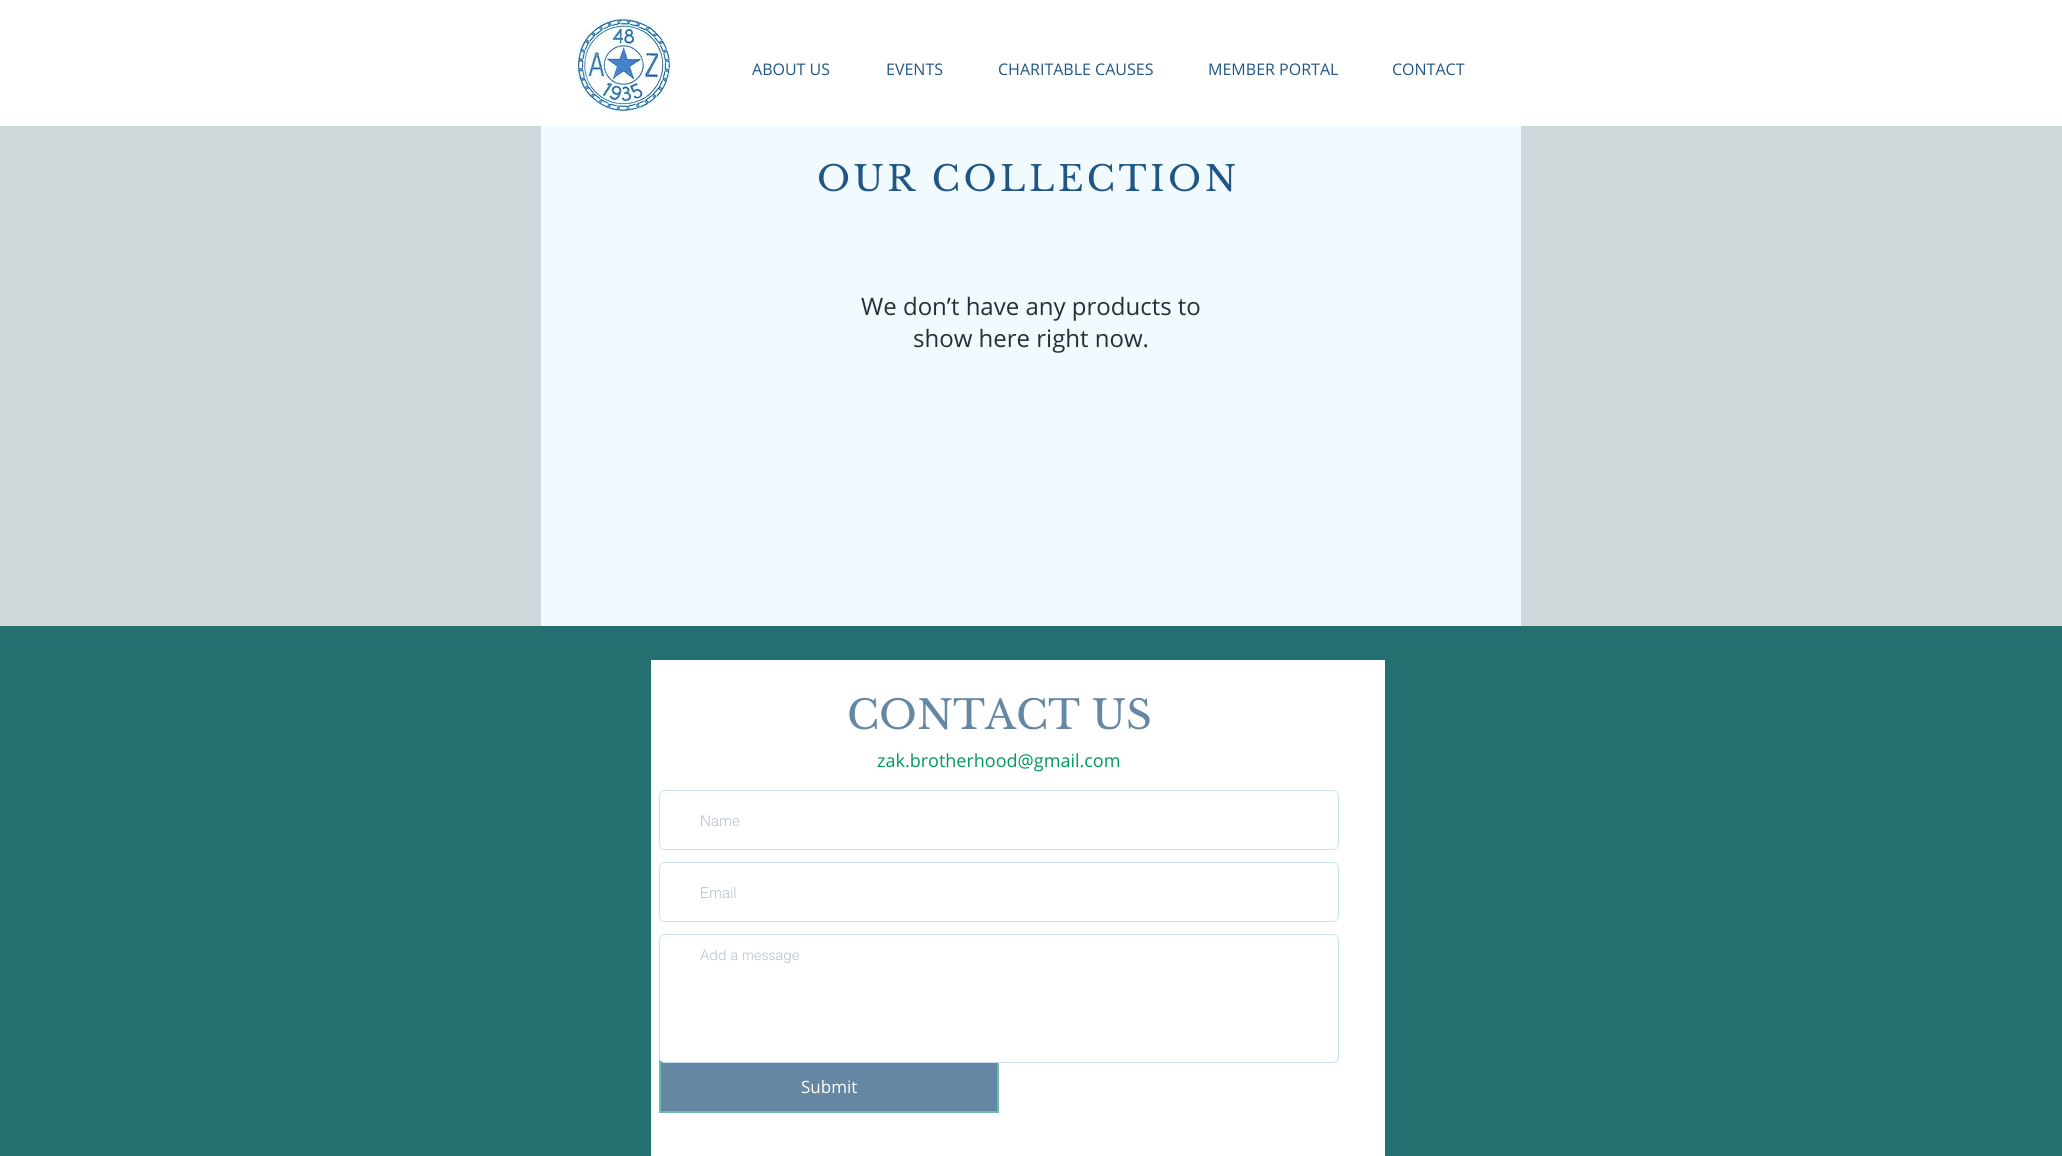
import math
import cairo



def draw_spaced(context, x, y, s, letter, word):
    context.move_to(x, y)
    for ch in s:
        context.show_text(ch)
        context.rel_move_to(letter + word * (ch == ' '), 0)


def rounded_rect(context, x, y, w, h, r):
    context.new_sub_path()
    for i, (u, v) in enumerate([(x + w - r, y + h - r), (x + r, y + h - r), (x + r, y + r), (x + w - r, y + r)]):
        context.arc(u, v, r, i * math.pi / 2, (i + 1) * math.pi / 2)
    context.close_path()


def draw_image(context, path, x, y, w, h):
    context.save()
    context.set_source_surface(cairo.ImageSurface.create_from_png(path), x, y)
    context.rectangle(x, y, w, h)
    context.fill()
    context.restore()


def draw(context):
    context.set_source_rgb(206 / 255, 215 / 255, 217 / 255)
    context.paint()
    context.set_source_rgb(1, 1, 1)
    context.rectangle(0, 0, 2062, 126)
    context.fill()
    draw_image(context, "images/1.png", 576, 14, 96, 100)
    context.set_source_rgb(240 / 255, 250 / 255, 1)
    context.rectangle(541, 126, 980, 500)
    context.fill()
    context.set_source_rgb(36 / 255, 112 / 255, 112 / 255)
    context.rectangle(0, 626, 2062, 530)
    context.fill()
    context.set_source_rgb(1, 1, 1)
    context.rectangle(651, 660, 734, 496)
    context.fill()
    rounded_rect(context, 659.5, 790.5, 679, 59, 5.5)
    context.set_source_rgb(198 / 255, 226 / 255, 247 / 255)
    context.set_line_width(1)
    context.stroke()
    rounded_rect(context, 659.5, 862.5, 679, 59, 5.5)
    context.stroke()
    context.set_source_rgb(101 / 255, 135 / 255, 164 / 255)
    context.rectangle(660, 1061, 338, 51)
    context.fill_preserve()
    context.set_source_rgb(109 / 255, 187 / 255, 173 / 255)
    context.set_line_width(2)
    context.stroke()
    context.set_source_rgb(1, 1, 1)
    rounded_rect(context, 659.5, 934.5, 679, 128, 5.5)
    context.fill_preserve()
    context.set_source_rgb(198 / 255, 226 / 255, 247 / 255)
    context.set_line_width(1)
    context.stroke()
    context.select_font_face("Open Sans")
    context.set_font_size(16)
    context.set_source_rgb(32 / 255, 86 / 255, 133 / 255)
    context.move_to(752, 75)
    context.show_text("ABOUT US")
    context.move_to(886, 75)
    context.show_text("EVENTS")
    context.move_to(998, 75)
    context.show_text("CHARITABLE CAUSES")
    context.move_to(1208, 75)
    context.show_text("MEMBER PORTAL")
    context.move_to(1392, 75)
    context.show_text("CONTACT")
    context.select_font_face("Libre Baskerville")
    context.set_font_size(35)
    draw_spaced(context, 817, 191, "OUR COLLECTION", 3.5, 0)
    context.select_font_face("Open Sans")
    context.set_font_size(24)
    context.set_source_rgb(41 / 255, 47 / 255, 51 / 255)
    context.move_to(861, 315)
    context.show_text("We don’t have any products to")
    context.move_to(913, 347)
    context.show_text("show here right now.")
    context.select_font_face("Libre Baskerville")
    context.set_font_size(40)
    context.set_source_rgb(101 / 255, 135 / 255, 164 / 255)
    context.move_to(847, 729)
    context.show_text("CONTACT US")
    context.select_font_face("Open Sans")
    context.set_font_size(18)
    context.set_source_rgb(0, 153 / 255, 91 / 255)
    context.move_to(877, 767)
    context.show_text("zak.brotherhood@gmail.com")
    context.select_font_face("helvetica Light")
    context.set_font_size(15)
    context.set_source_rgb(182 / 255, 193 / 255, 205 / 255)
    context.move_to(700, 826)
    context.show_text("Name")
    context.move_to(700, 898)
    context.show_text("Email")
    context.set_font_size(14)
    context.move_to(700, 960)
    context.show_text("Add a message")
    context.select_font_face("Open Sans")
    context.set_font_size(17)
    context.set_source_rgb(1, 1, 1)
    context.move_to(801, 1093)
    context.show_text("Submit")


surface = cairo.ImageSurface(cairo.Format.RGB24, 2062, 1156)
context = cairo.Context(surface)
options = cairo.FontOptions()
options.set_hint_metrics(cairo.HintMetrics.OFF)
options.set_hint_style(cairo.HintStyle.NONE)
context.set_font_options(options)
context.set_miter_limit(4)
draw(context)
surface.write_to_png("out.png")
